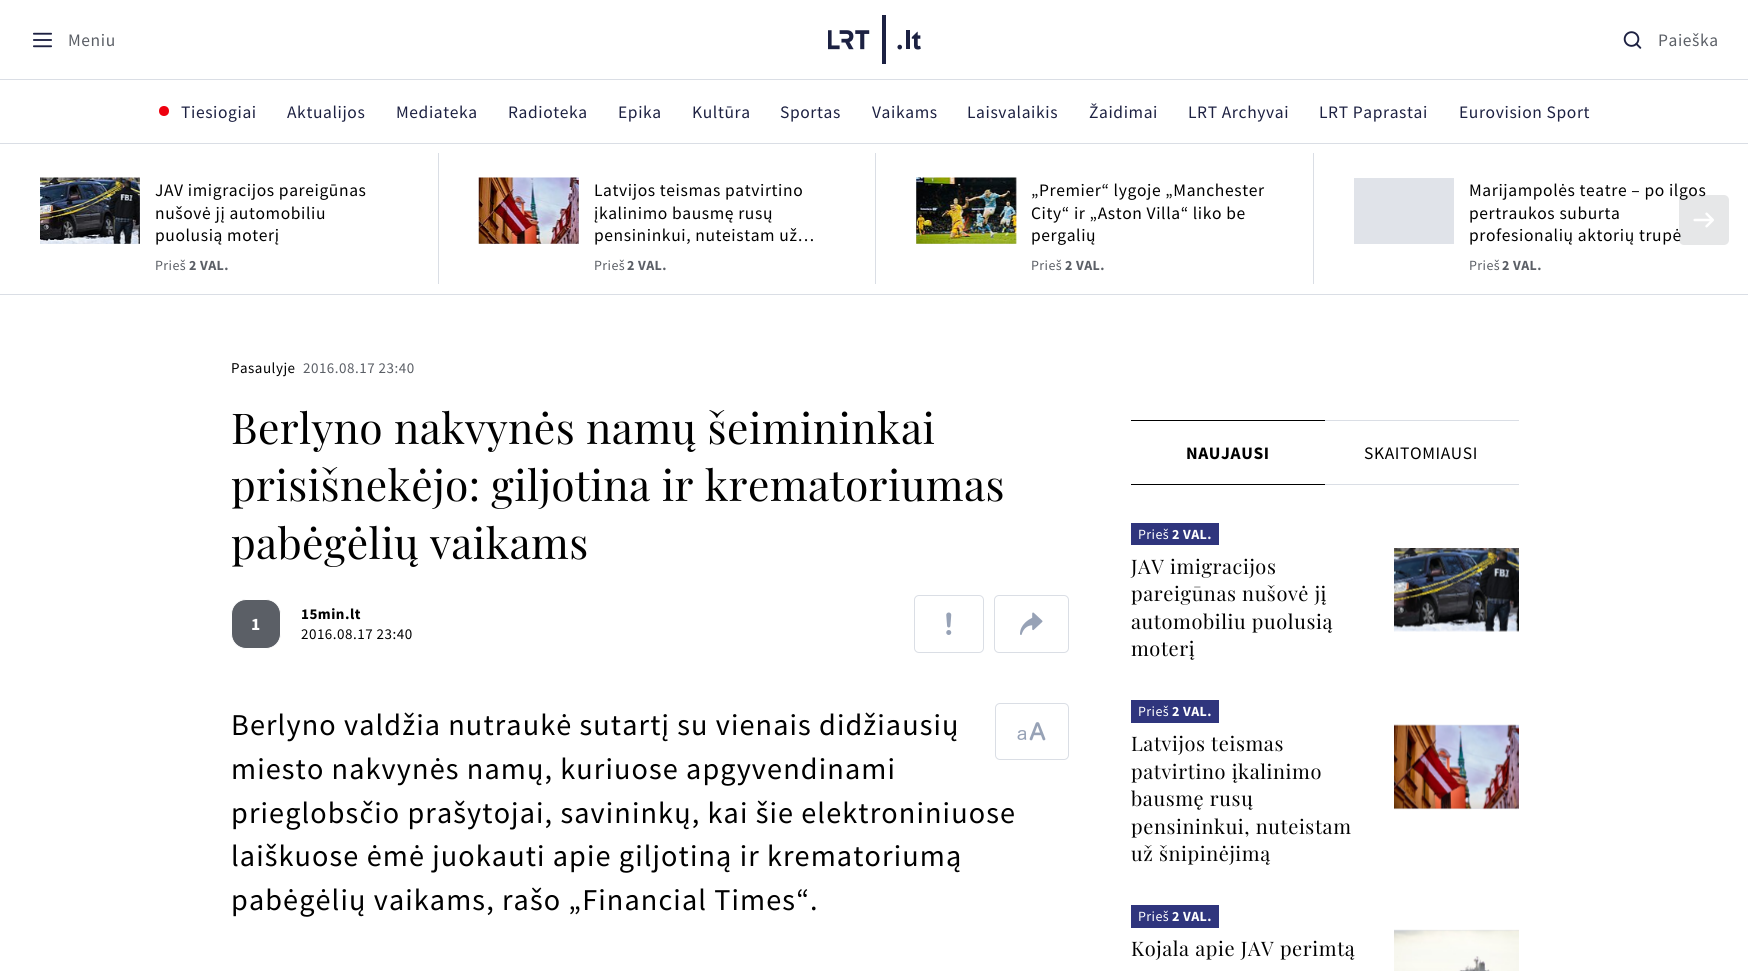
import math
import cairo



def draw_spaced(context, x, y, s, letter, word):
    context.move_to(x, y)
    for ch in s:
        context.show_text(ch)
        context.rel_move_to(letter + word * (ch == ' '), 0)


def rounded_rect(context, x, y, w, h, r):
    context.new_sub_path()
    for i, (u, v) in enumerate([(x + w - r, y + h - r), (x + r, y + h - r), (x + r, y + r), (x + w - r, y + r)]):
        context.arc(u, v, r, i * math.pi / 2, (i + 1) * math.pi / 2)
    context.close_path()


def draw_image(context, path, x, y, w, h):
    context.save()
    context.set_source_surface(cairo.ImageSurface.create_from_png(path), x, y)
    context.rectangle(x, y, w, h)
    context.fill()
    context.restore()


def draw(context):
    context.set_source_rgb(1, 1, 1)
    context.paint()
    context.set_source_rgb(218 / 255, 222 / 255, 229 / 255)
    context.rectangle(0, 79, 1748, 1)
    context.fill()
    draw_image(context, "images/1.png", 33, 32, 19, 16)
    draw_image(context, "images/2.png", 828, 15, 93, 49)
    draw_image(context, "images/3.png", 1623, 31, 19, 18)
    context.rectangle(0, 143, 1748, 1)
    context.fill()
    context.set_source_rgb(238 / 255, 0, 14 / 255)
    context.arc(164, 111, 5, 0, 2 * math.pi)
    context.fill()
    context.set_source_rgb(218 / 255, 222 / 255, 229 / 255)
    context.rectangle(0, 294, 1748, 1)
    context.fill()
    context.set_source_rgb(224 / 255, 227 / 255, 233 / 255)
    context.rectangle(40, 178, 100, 66)
    context.fill()
    draw_image(context, "images/4.png", 40, 177, 100, 67)
    context.set_source_rgb(218 / 255, 222 / 255, 229 / 255)
    context.rectangle(438, 153, 1, 131)
    context.fill()
    context.set_source_rgb(224 / 255, 227 / 255, 233 / 255)
    context.rectangle(479, 178, 100, 66)
    context.fill()
    draw_image(context, "images/5.png", 478, 177, 101, 67)
    context.set_source_rgb(218 / 255, 222 / 255, 229 / 255)
    context.rectangle(875, 153, 1, 131)
    context.fill()
    context.set_source_rgb(224 / 255, 227 / 255, 233 / 255)
    context.rectangle(916, 178, 100, 66)
    context.fill()
    draw_image(context, "images/6.png", 916, 177, 101, 67)
    context.set_source_rgb(218 / 255, 222 / 255, 229 / 255)
    context.rectangle(1313, 153, 1, 131)
    context.fill()
    context.set_source_rgb(224 / 255, 227 / 255, 233 / 255)
    context.rectangle(1354, 178, 100, 66)
    context.fill()
    context.set_source_rgb(91 / 255, 95 / 255, 102 / 255)
    rounded_rect(context, 231.5, 599.5, 49, 49, 14.5)
    context.fill_preserve()
    context.set_source_rgb(1, 1, 1)
    context.set_line_width(1)
    context.stroke()
    rounded_rect(context, 914.5, 595.5, 69, 57, 4.5)
    context.set_source_rgb(218 / 255, 222 / 255, 229 / 255)
    context.stroke()
    draw_image(context, "images/8.png", 946, 612, 6, 23)
    rounded_rect(context, 994.5, 595.5, 74, 57, 4.5)
    context.stroke()
    draw_image(context, "images/9.png", 1020, 612, 23, 23)
    rounded_rect(context, 995.5, 703.5, 73, 56, 4.5)
    context.stroke()
    draw_image(context, "images/10.png", 1017, 722, 29, 19)
    context.set_source_rgb(0, 0, 0)
    context.rectangle(1131, 420, 194, 1)
    context.fill()
    context.rectangle(1131, 484, 194, 1)
    context.fill()
    context.set_source_rgb(218 / 255, 222 / 255, 229 / 255)
    context.rectangle(1325, 420, 194, 1)
    context.fill()
    context.rectangle(1325, 484, 194, 1)
    context.fill()
    context.set_source_rgb(47 / 255, 53 / 255, 125 / 255)
    context.rectangle(1131, 523, 88, 22)
    context.fill()
    draw_image(context, "images/11.png", 1394, 548, 125, 84)
    context.rectangle(1131, 700, 88, 23)
    context.fill()
    context.set_source_rgb(224 / 255, 227 / 255, 233 / 255)
    context.rectangle(1394, 725, 125, 84)
    context.fill()
    draw_image(context, "images/12.png", 1394, 724, 125, 86)
    context.set_source_rgb(47 / 255, 53 / 255, 125 / 255)
    context.rectangle(1131, 905, 88, 23)
    context.fill()
    context.set_source_rgb(224 / 255, 227 / 255, 233 / 255)
    context.rectangle(1394, 930, 125, 1)
    context.fill()
    draw_image(context, "images/13.png", 1394, 929, 125, 42)
    context.select_font_face("Source Sans Pro")
    context.set_font_size(17.5)
    context.set_source_rgb(91 / 255, 95 / 255, 102 / 255)
    draw_spaced(context, 68, 46, "Meniu", 0.6, 0)
    draw_spaced(context, 1658, 46, "Paieška", 0.6, 0)
    context.set_source_rgb(29 / 255, 33 / 255, 66 / 255)
    draw_spaced(context, 181, 118, "Tiesiogiai", 0.6, 0)
    draw_spaced(context, 287, 118, "Aktualijos", 0.6, 0)
    draw_spaced(context, 396, 118, "Mediateka", 0.6, 0)
    draw_spaced(context, 508, 118, "Radioteka", 0.6, 0)
    draw_spaced(context, 618, 118, "Epika", 0.6, 0)
    draw_spaced(context, 692, 118, "Kultūra", 0.6, 0)
    draw_spaced(context, 780, 118, "Sportas", 0.6, 0)
    draw_spaced(context, 872, 118, "Vaikams", 0.6, 0)
    draw_spaced(context, 967, 118, "Laisvalaikis", 0.6, 0)
    draw_spaced(context, 1089, 118, "Žaidimai", 0.6, 0)
    draw_spaced(context, 1188, 118, "LRT Archyvai", 0.6, 0)
    draw_spaced(context, 1319, 118, "LRT Paprastai", 0.6, 0)
    draw_spaced(context, 1459, 118, "Eurovision Sport", 0.6, 0)
    context.set_source_rgb(0, 0, 0)
    draw_spaced(context, 155, 196, "JAV imigracijos pareigūnas", 0.6, 0)
    draw_spaced(context, 155, 219, "nušovė jį automobiliu", 0.6, 0)
    draw_spaced(context, 155, 241, "puolusią moterį", 0.6, 0)
    context.set_font_size(14)
    context.set_source_rgb(91 / 255, 95 / 255, 102 / 255)
    draw_spaced(context, 155, 270, "Prieš", 0.4, 0)
    context.select_font_face("Source Sans Pro", cairo.FontSlant.NORMAL, cairo.FontWeight.BOLD)
    draw_spaced(context, 189, 270, "2 VAL.", 0.4, 0)
    context.select_font_face("Source Sans Pro")
    context.set_font_size(17.5)
    context.set_source_rgb(0, 0, 0)
    draw_spaced(context, 594, 196, "Latvijos teismas patvirtino", 0.6, 0)
    draw_spaced(context, 594, 219, "įkalinimo bausmę rusų", 0.6, 0)
    draw_spaced(context, 594, 241, "pensininkui, nuteistam už…", 0.6, 0)
    context.set_font_size(14)
    context.set_source_rgb(91 / 255, 95 / 255, 102 / 255)
    draw_spaced(context, 594, 270, "Prieš", 0.4, 0)
    context.select_font_face("Source Sans Pro", cairo.FontSlant.NORMAL, cairo.FontWeight.BOLD)
    draw_spaced(context, 627, 270, "2 VAL.", 0.4, 0)
    context.select_font_face("Source Sans Pro")
    context.set_font_size(17.5)
    context.set_source_rgb(0, 0, 0)
    draw_spaced(context, 1031, 196, "„Premier“ lygoje „Manchester", 0.6, 0)
    draw_spaced(context, 1031, 219, "City“ ir „Aston Villa“ liko be", 0.6, 0)
    draw_spaced(context, 1031, 241, "pergalių", 0.6, 0)
    context.set_font_size(14)
    context.set_source_rgb(91 / 255, 95 / 255, 102 / 255)
    draw_spaced(context, 1031, 270, "Prieš", 0.4, 0)
    context.select_font_face("Source Sans Pro", cairo.FontSlant.NORMAL, cairo.FontWeight.BOLD)
    draw_spaced(context, 1065, 270, "2 VAL.", 0.4, 0)
    context.select_font_face("Source Sans Pro")
    context.set_font_size(17.5)
    context.set_source_rgb(0, 0, 0)
    draw_spaced(context, 1469, 196, "Marijampolės teatre – po ilgos", 0.6, 0)
    draw_spaced(context, 1469, 219, "pertraukos suburta", 0.6, 0)
    draw_spaced(context, 1469, 241, "profesionalių aktorių trupė", 0.6, 0)
    context.set_font_size(14)
    context.set_source_rgb(91 / 255, 95 / 255, 102 / 255)
    draw_spaced(context, 1469, 270, "Prieš", 0.4, 0)
    context.select_font_face("Source Sans Pro", cairo.FontSlant.NORMAL, cairo.FontWeight.BOLD)
    draw_spaced(context, 1502, 270, "2 VAL.", 0.4, 0)
    context.set_source_rgba(91 / 255, 95 / 255, 102 / 255, 0.15)
    rounded_rect(context, 1679, 195, 50, 50, 5)
    context.fill()
    draw_image(context, "images/7.png", 1693, 212, 21, 16)
    context.select_font_face("Source Sans Pro")
    context.set_font_size(15)
    context.set_source_rgb(0, 0, 0)
    draw_spaced(context, 231, 373, "Pasaulyje", 0.5, 0)
    context.set_source_rgb(91 / 255, 95 / 255, 102 / 255)
    draw_spaced(context, 303, 373, "2016.08.17 23:40", 0.5, 0)
    context.select_font_face("Playfair Display")
    context.set_font_size(42.5)
    context.set_source_rgb(0, 0, 0)
    draw_spaced(context, 231, 444, "Berlyno nakvynės namų šeimininkai", 0.4, 0)
    draw_spaced(context, 231, 501, "prisišnekėjo: giljotina ir krematoriumas", 0.4, 0)
    draw_spaced(context, 231, 559, "pabėgėlių vaikams", 0.4, 0)
    context.select_font_face("Source Sans Pro", cairo.FontSlant.NORMAL, cairo.FontWeight.BOLD)
    context.set_font_size(17.5)
    context.set_source_rgb(1, 1, 1)
    draw_spaced(context, 251, 630, "1", 0.6, 0)
    context.set_font_size(15)
    context.set_source_rgb(0, 0, 0)
    draw_spaced(context, 301, 619, "15min.lt", 0.5, 0)
    context.select_font_face("Source Sans Pro")
    draw_spaced(context, 301, 639, "2016.08.17 23:40", 0.5, 0)
    context.set_font_size(30.2)
    draw_spaced(context, 231, 735, "Berlyno valdžia nutraukė sutartį su vienais didžiausių", 1.12, 0)
    draw_spaced(context, 231, 779, "miesto nakvynės namų, kuriuose apgyvendinami", 1.12, 0)
    draw_spaced(context, 231, 823, "prieglobsčio prašytojai, savininkų, kai šie elektroniniuose", 1.12, 0)
    draw_spaced(context, 231, 866, "laiškuose ėmė juokauti apie giljotiną ir krematoriumą", 1.12, 0)
    draw_spaced(context, 231, 910, "pabėgėlių vaikams, rašo „Financial Times“.", 1.12, 0)
    context.select_font_face("Source Sans Pro", cairo.FontSlant.NORMAL, cairo.FontWeight.BOLD)
    context.set_font_size(17.5)
    draw_spaced(context, 1186, 459, "NAUJAUSI", 0.6, 0)
    context.select_font_face("Source Sans Pro")
    draw_spaced(context, 1364, 459, "SKAITOMIAUSI", 0.6, 0)
    context.set_font_size(14)
    context.set_source_rgb(1, 1, 1)
    draw_spaced(context, 1138, 539, "Prieš", 0.4, 0)
    context.select_font_face("Source Sans Pro", cairo.FontSlant.NORMAL, cairo.FontWeight.BOLD)
    draw_spaced(context, 1172, 539, "2 VAL.", 0.4, 0)
    context.select_font_face("Playfair Display")
    context.set_font_size(20)
    context.set_source_rgb(0, 0, 0)
    draw_spaced(context, 1131, 574, "JAV imigracijos", 0.6, 0)
    draw_spaced(context, 1131, 601, "pareigūnas nušovė jį", 0.6, 0)
    draw_spaced(context, 1131, 629, "automobiliu puolusią", 0.6, 0)
    draw_spaced(context, 1131, 656, "moterį", 0.6, 0)
    context.select_font_face("Source Sans Pro")
    context.set_font_size(14)
    context.set_source_rgb(1, 1, 1)
    draw_spaced(context, 1138, 716, "Prieš", 0.4, 0)
    context.select_font_face("Source Sans Pro", cairo.FontSlant.NORMAL, cairo.FontWeight.BOLD)
    draw_spaced(context, 1172, 716, "2 VAL.", 0.4, 0)
    context.select_font_face("Playfair Display")
    context.set_font_size(20)
    context.set_source_rgb(0, 0, 0)
    draw_spaced(context, 1131, 751, "Latvijos teismas", 0.6, 0)
    draw_spaced(context, 1131, 779, "patvirtino įkalinimo", 0.6, 0)
    draw_spaced(context, 1131, 806, "bausmę rusų", 0.6, 0)
    draw_spaced(context, 1131, 834, "pensininkui, nuteistam", 0.6, 0)
    draw_spaced(context, 1131, 861, "už šnipinėjimą", 0.6, 0)
    context.select_font_face("Source Sans Pro")
    context.set_font_size(14)
    context.set_source_rgb(1, 1, 1)
    draw_spaced(context, 1138, 921, "Prieš", 0.4, 0)
    context.select_font_face("Source Sans Pro", cairo.FontSlant.NORMAL, cairo.FontWeight.BOLD)
    draw_spaced(context, 1172, 921, "2 VAL.", 0.4, 0)
    context.select_font_face("Playfair Display")
    context.set_font_size(20)
    context.set_source_rgb(0, 0, 0)
    draw_spaced(context, 1131, 956, "Kojala apie JAV perimtą", 0.6, 0)


surface = cairo.ImageSurface(cairo.Format.RGB24, 1748, 971)
context = cairo.Context(surface)
options = cairo.FontOptions()
options.set_hint_metrics(cairo.HintMetrics.OFF)
options.set_hint_style(cairo.HintStyle.NONE)
context.set_font_options(options)
context.set_miter_limit(4)
draw(context)
surface.write_to_png("out.png")
